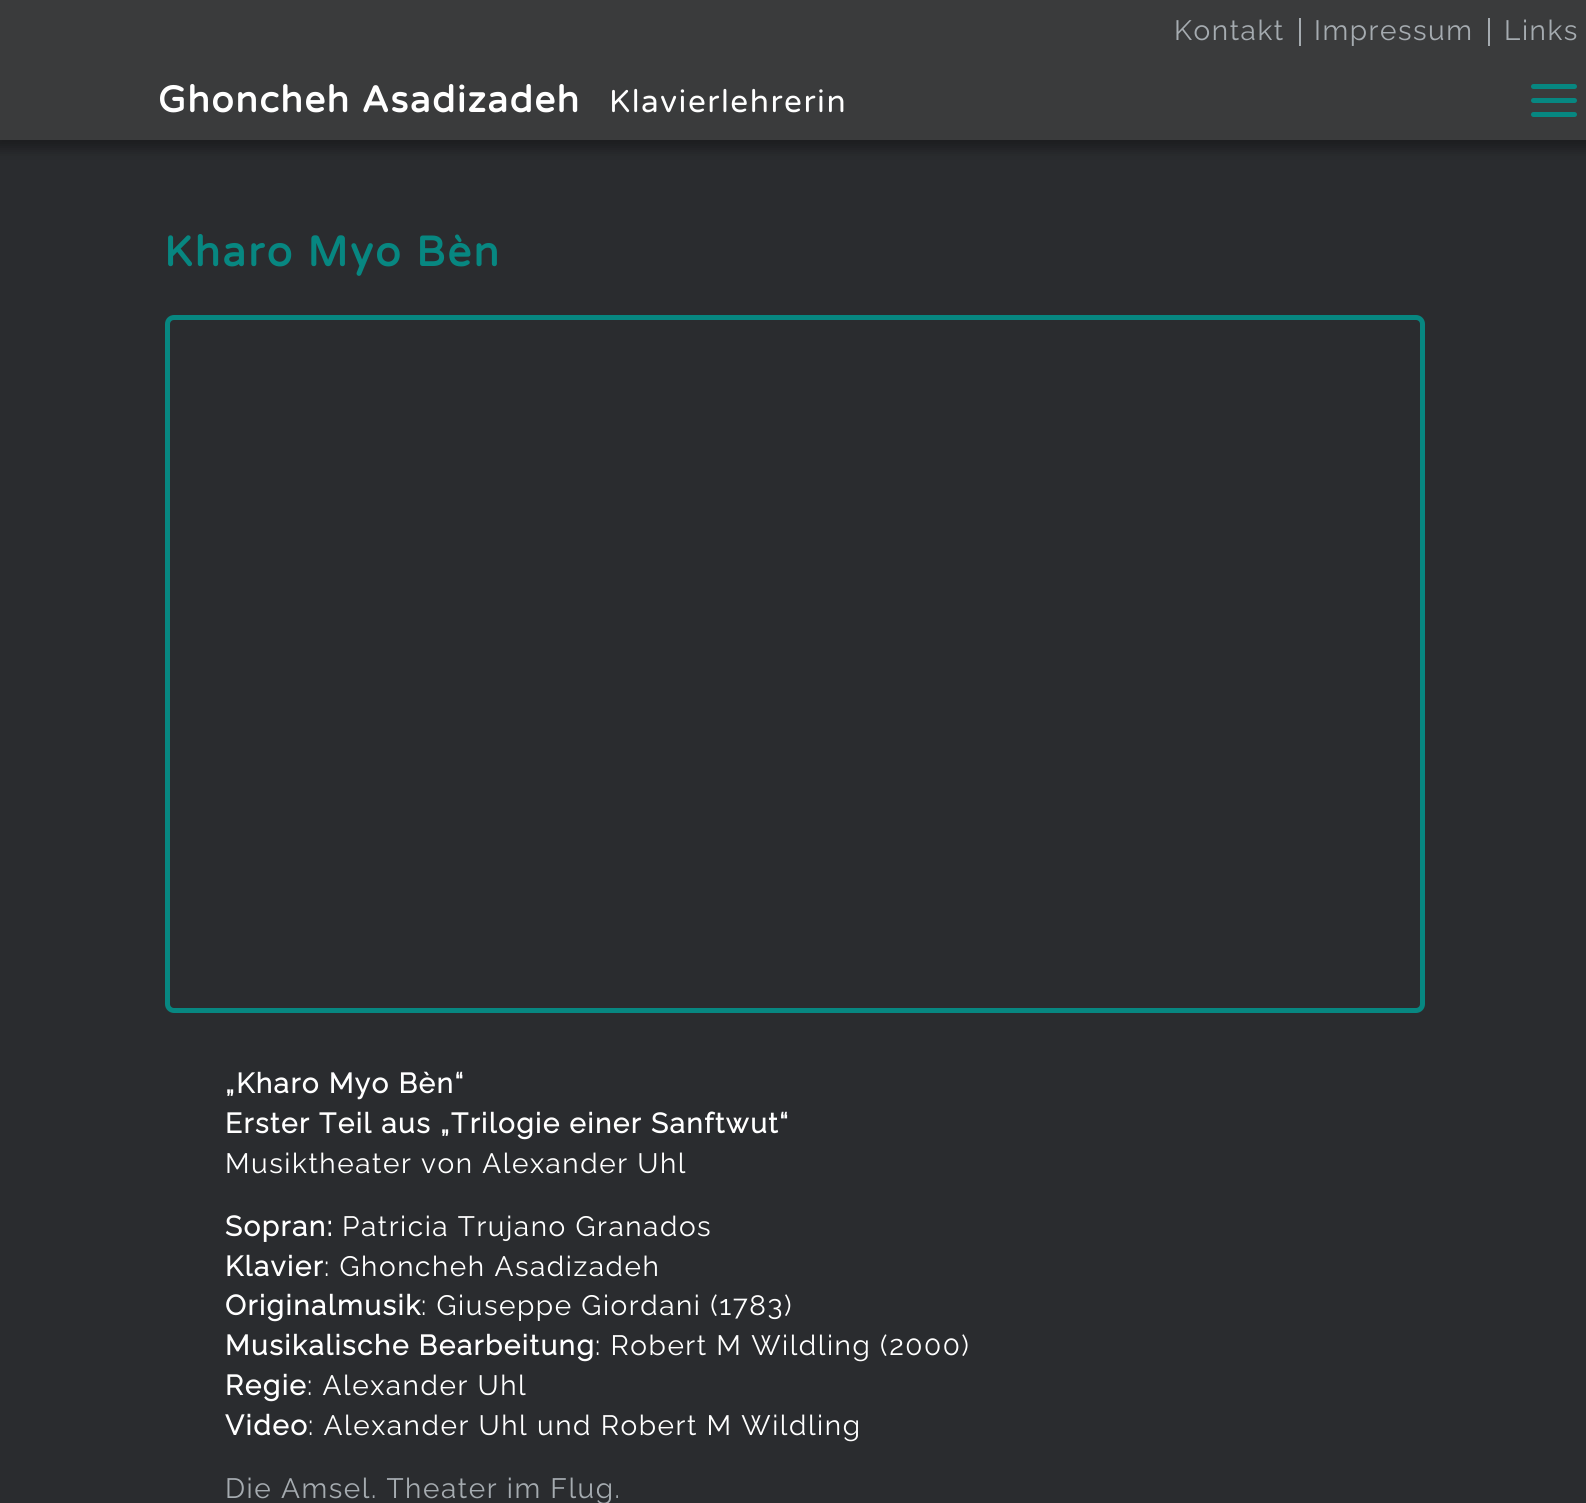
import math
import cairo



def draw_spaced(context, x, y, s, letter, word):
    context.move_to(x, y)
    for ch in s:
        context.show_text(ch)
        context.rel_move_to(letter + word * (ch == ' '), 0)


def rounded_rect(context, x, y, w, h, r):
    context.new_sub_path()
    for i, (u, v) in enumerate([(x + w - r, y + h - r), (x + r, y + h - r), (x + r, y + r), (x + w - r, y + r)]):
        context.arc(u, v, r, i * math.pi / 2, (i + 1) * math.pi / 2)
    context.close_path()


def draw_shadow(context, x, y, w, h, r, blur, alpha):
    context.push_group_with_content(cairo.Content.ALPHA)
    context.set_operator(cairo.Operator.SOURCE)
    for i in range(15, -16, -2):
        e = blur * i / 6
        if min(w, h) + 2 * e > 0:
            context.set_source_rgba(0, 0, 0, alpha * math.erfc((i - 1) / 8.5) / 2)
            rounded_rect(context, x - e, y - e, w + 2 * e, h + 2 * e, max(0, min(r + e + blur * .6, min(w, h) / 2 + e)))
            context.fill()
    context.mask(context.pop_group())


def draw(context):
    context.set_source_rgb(42 / 255, 44 / 255, 47 / 255)
    context.paint()
    context.set_source_rgb(0, 0, 0)
    draw_shadow(context, -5, -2, 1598, 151, 0, 6, 0.35)
    context.set_source_rgb(58 / 255, 59 / 255, 60 / 255)
    context.rectangle(0, 0, 1586, 140)
    context.fill()
    context.set_source_rgb(165 / 255, 171 / 255, 176 / 255)
    context.rectangle(1299, 18, 2, 28)
    context.fill()
    context.rectangle(1488, 18, 2, 28)
    context.fill()
    context.set_source_rgb(7 / 255, 135 / 255, 129 / 255)
    rounded_rect(context, 1531, 84, 46, 5, 2.5)
    context.fill()
    rounded_rect(context, 1531, 98, 46, 5, 2.5)
    context.fill()
    rounded_rect(context, 1531, 112, 46, 5, 2.5)
    context.fill()
    rounded_rect(context, 167.5, 317.5, 1255, 693, 6.5)
    context.set_line_width(5)
    context.stroke()
    context.select_font_face("Raleway Thin")
    context.set_font_size(28)
    context.set_source_rgb(165 / 255, 171 / 255, 176 / 255)
    draw_spaced(context, 1174, 40, "Kontakt", 1.55, 0)
    draw_spaced(context, 1314, 40, "Impressum", 1.55, 0)
    draw_spaced(context, 1504, 40, "Links", 1.55, 0)
    context.select_font_face("Varela Round", cairo.FontSlant.NORMAL, cairo.FontWeight.BOLD)
    context.set_font_size(36.75)
    context.set_source_rgb(1, 1, 1)
    draw_spaced(context, 158, 112, "Ghoncheh Asadizadeh", 1.55, 0)
    context.select_font_face("Varela Round")
    context.set_font_size(31.5)
    draw_spaced(context, 609, 112, "Klavierlehrerin", 1.55, 0)
    context.select_font_face("Varela Round", cairo.FontSlant.NORMAL, cairo.FontWeight.BOLD)
    context.set_font_size(42)
    context.set_source_rgb(7 / 255, 135 / 255, 129 / 255)
    draw_spaced(context, 164, 266, "Kharo Myo Bèn", 2.25, 0)
    context.select_font_face("Raleway", cairo.FontSlant.NORMAL, cairo.FontWeight.BOLD)
    context.set_font_size(28)
    context.set_source_rgb(1, 1, 1)
    draw_spaced(context, 225, 1093, "„Kharo Myo Bèn“", 1.55, 0)
    draw_spaced(context, 225, 1133, "Erster Teil aus „Trilogie einer Sanftwut“", 1.55, 0)
    context.select_font_face("Raleway Thin")
    draw_spaced(context, 225, 1173, "Musiktheater von Alexander Uhl", 1.55, 0)
    context.select_font_face("Raleway", cairo.FontSlant.NORMAL, cairo.FontWeight.BOLD)
    draw_spaced(context, 225, 1236, "Sopran:", 1.55, 0)
    context.select_font_face("Raleway Thin")
    draw_spaced(context, 342, 1236, "Patricia Trujano Granados", 1.55, 0)
    context.select_font_face("Raleway", cairo.FontSlant.NORMAL, cairo.FontWeight.BOLD)
    draw_spaced(context, 225, 1276, "Klavier", 1.55, 0)
    context.select_font_face("Raleway Thin")
    draw_spaced(context, 324, 1276, ": Ghoncheh Asadizadeh", 1.55, 0)
    context.select_font_face("Raleway", cairo.FontSlant.NORMAL, cairo.FontWeight.BOLD)
    draw_spaced(context, 225, 1315, "Originalmusik", 1.55, 0)
    context.select_font_face("Raleway Thin")
    draw_spaced(context, 421, 1315, ": Giuseppe Giordani (1783)", 1.55, 0)
    context.select_font_face("Raleway", cairo.FontSlant.NORMAL, cairo.FontWeight.BOLD)
    draw_spaced(context, 225, 1355, "Musikalische Bearbeitung", 1.55, 0)
    context.select_font_face("Raleway Thin")
    draw_spaced(context, 595, 1355, ": Robert M Wildling (2000)", 1.55, 0)
    context.select_font_face("Raleway", cairo.FontSlant.NORMAL, cairo.FontWeight.BOLD)
    draw_spaced(context, 225, 1395, "Regie", 1.55, 0)
    context.select_font_face("Raleway Thin")
    draw_spaced(context, 307, 1395, ": Alexander Uhl", 1.55, 0)
    context.select_font_face("Raleway", cairo.FontSlant.NORMAL, cairo.FontWeight.BOLD)
    draw_spaced(context, 225, 1435, "Video", 1.55, 0)
    context.select_font_face("Raleway Thin")
    draw_spaced(context, 308, 1435, ": Alexander Uhl und Robert M Wildling", 1.55, 0)
    context.set_source_rgb(165 / 255, 171 / 255, 176 / 255)
    draw_spaced(context, 225, 1498, "Die Amsel. Theater im Flug.", 1.55, 0)


surface = cairo.ImageSurface(cairo.Format.RGB24, 1586, 1503)
context = cairo.Context(surface)
options = cairo.FontOptions()
options.set_hint_metrics(cairo.HintMetrics.OFF)
options.set_hint_style(cairo.HintStyle.NONE)
context.set_font_options(options)
context.set_miter_limit(4)
draw(context)
surface.write_to_png("out.png")
